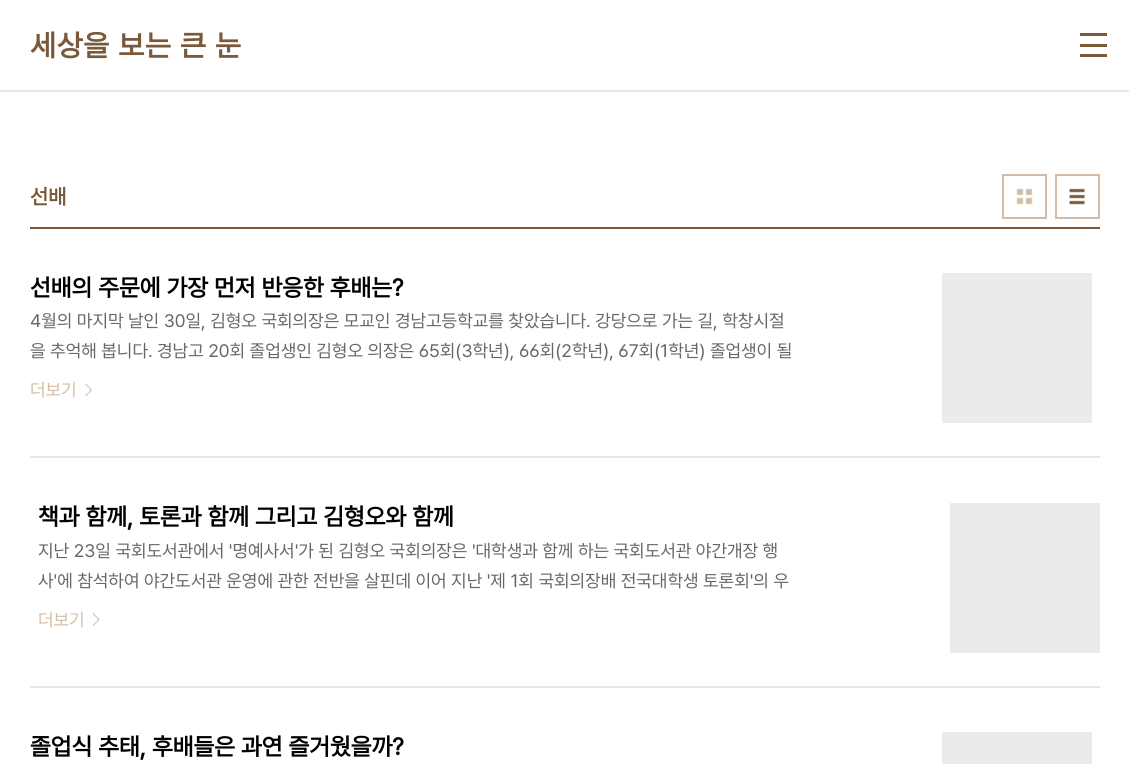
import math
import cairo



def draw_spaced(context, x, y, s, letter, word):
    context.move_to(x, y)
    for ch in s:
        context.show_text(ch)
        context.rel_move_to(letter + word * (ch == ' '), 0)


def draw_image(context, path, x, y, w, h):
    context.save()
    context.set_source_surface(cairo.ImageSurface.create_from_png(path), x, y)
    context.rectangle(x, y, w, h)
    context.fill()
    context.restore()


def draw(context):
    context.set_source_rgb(1, 1, 1)
    context.paint()
    context.set_source_rgb(230 / 255, 230 / 255, 230 / 255)
    context.rectangle(0, 90, 1129, 2)
    context.fill()
    context.set_source_rgb(122 / 255, 88 / 255, 58 / 255)
    context.rectangle(1080, 33, 27, 3)
    context.fill()
    context.rectangle(1080, 44, 27, 3)
    context.fill()
    context.rectangle(1080, 54, 27, 3)
    context.fill()
    context.rectangle(30, 227, 1070, 2)
    context.fill()
    draw_image(context, "images/1.png", 1016, 188, 17, 17)
    context.rectangle(1003, 175, 43, 43)
    context.set_source_rgb(212 / 255, 188 / 255, 167 / 255)
    context.stroke()
    draw_image(context, "images/2.png", 1069, 188, 16, 17)
    context.rectangle(1056, 175, 43, 43)
    context.stroke()
    context.set_source_rgb(230 / 255, 230 / 255, 230 / 255)
    context.rectangle(30, 456, 1070, 2)
    context.fill()
    context.set_source_rgb(235 / 255, 235 / 255, 235 / 255)
    context.rectangle(942, 273, 150, 150)
    context.fill()
    draw_image(context, "images/3.png", 85, 384, 7, 12)
    context.set_source_rgb(230 / 255, 230 / 255, 230 / 255)
    context.rectangle(30, 686, 1070, 2)
    context.fill()
    context.set_source_rgb(235 / 255, 235 / 255, 235 / 255)
    context.rectangle(950, 503, 150, 150)
    context.fill()
    draw_image(context, "images/4.png", 93, 613, 6, 13)
    context.rectangle(942, 732, 150, 32)
    context.fill()
    context.select_font_face("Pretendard", cairo.FontSlant.NORMAL, cairo.FontWeight.BOLD)
    context.set_font_size(30)
    context.set_source_rgb(122 / 255, 88 / 255, 58 / 255)
    draw_spaced(context, 30, 56, "세상을 보는 큰 눈", 0.75, 0)
    context.set_font_size(21)
    context.move_to(30, 204)
    context.show_text("선배")
    context.set_font_size(24)
    context.set_source_rgb(0, 0, 0)
    context.move_to(30, 296)
    context.show_text("선배의 주문에 가장 먼저 반응한 후배는?")
    context.select_font_face("Pretendard")
    context.set_font_size(18)
    context.set_source_rgb(102 / 255, 102 / 255, 102 / 255)
    context.move_to(30, 327)
    context.show_text("4월의 마지막 날인 30일, 김형오 국회의장은 모교인 경남고등학교를 찾았습니다. 강당으로 가는 길, 학창시절")
    context.select_font_face("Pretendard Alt")
    context.move_to(30, 357)
    context.show_text("을 추억해 봅니다. 경남고 20회 졸업생인 김형오 의장은 65회(3학년), 66회(2학년), 67회(1학년) 졸업생이 될")
    context.select_font_face("Pretendard")
    context.set_source_rgb(212 / 255, 188 / 255, 167 / 255)
    context.move_to(30, 396)
    context.show_text("더보기")
    context.select_font_face("Pretendard", cairo.FontSlant.NORMAL, cairo.FontWeight.BOLD)
    context.set_font_size(24)
    context.set_source_rgb(0, 0, 0)
    context.move_to(38, 525)
    context.show_text("책과 함께, 토론과 함께 그리고 김형오와 함께")
    context.select_font_face("Pretendard")
    context.set_font_size(18)
    context.set_source_rgb(102 / 255, 102 / 255, 102 / 255)
    context.move_to(38, 557)
    context.show_text("지난 23일 국회도서관에서 '명예사서'가 된 김형오 국회의장은 '대학생과 함께 하는 국회도서관 야간개장 행")
    context.move_to(38, 587)
    context.show_text("사'에 참석하여 야간도서관 운영에 관한 전반을 살핀데 이어 지난 '제 1회 국회의장배 전국대학생 토론회'의 우")
    context.set_source_rgb(212 / 255, 188 / 255, 167 / 255)
    context.move_to(38, 626)
    context.show_text("더보기")
    context.select_font_face("Pretendard", cairo.FontSlant.NORMAL, cairo.FontWeight.BOLD)
    context.set_font_size(24)
    context.set_source_rgb(0, 0, 0)
    context.move_to(30, 755)
    context.show_text("졸업식 추태, 후배들은 과연 즐거웠을까?")


surface = cairo.ImageSurface(cairo.Format.RGB24, 1129, 764)
context = cairo.Context(surface)
options = cairo.FontOptions()
options.set_hint_metrics(cairo.HintMetrics.OFF)
options.set_hint_style(cairo.HintStyle.NONE)
context.set_font_options(options)
context.set_miter_limit(4)
draw(context)
surface.write_to_png("out.png")
